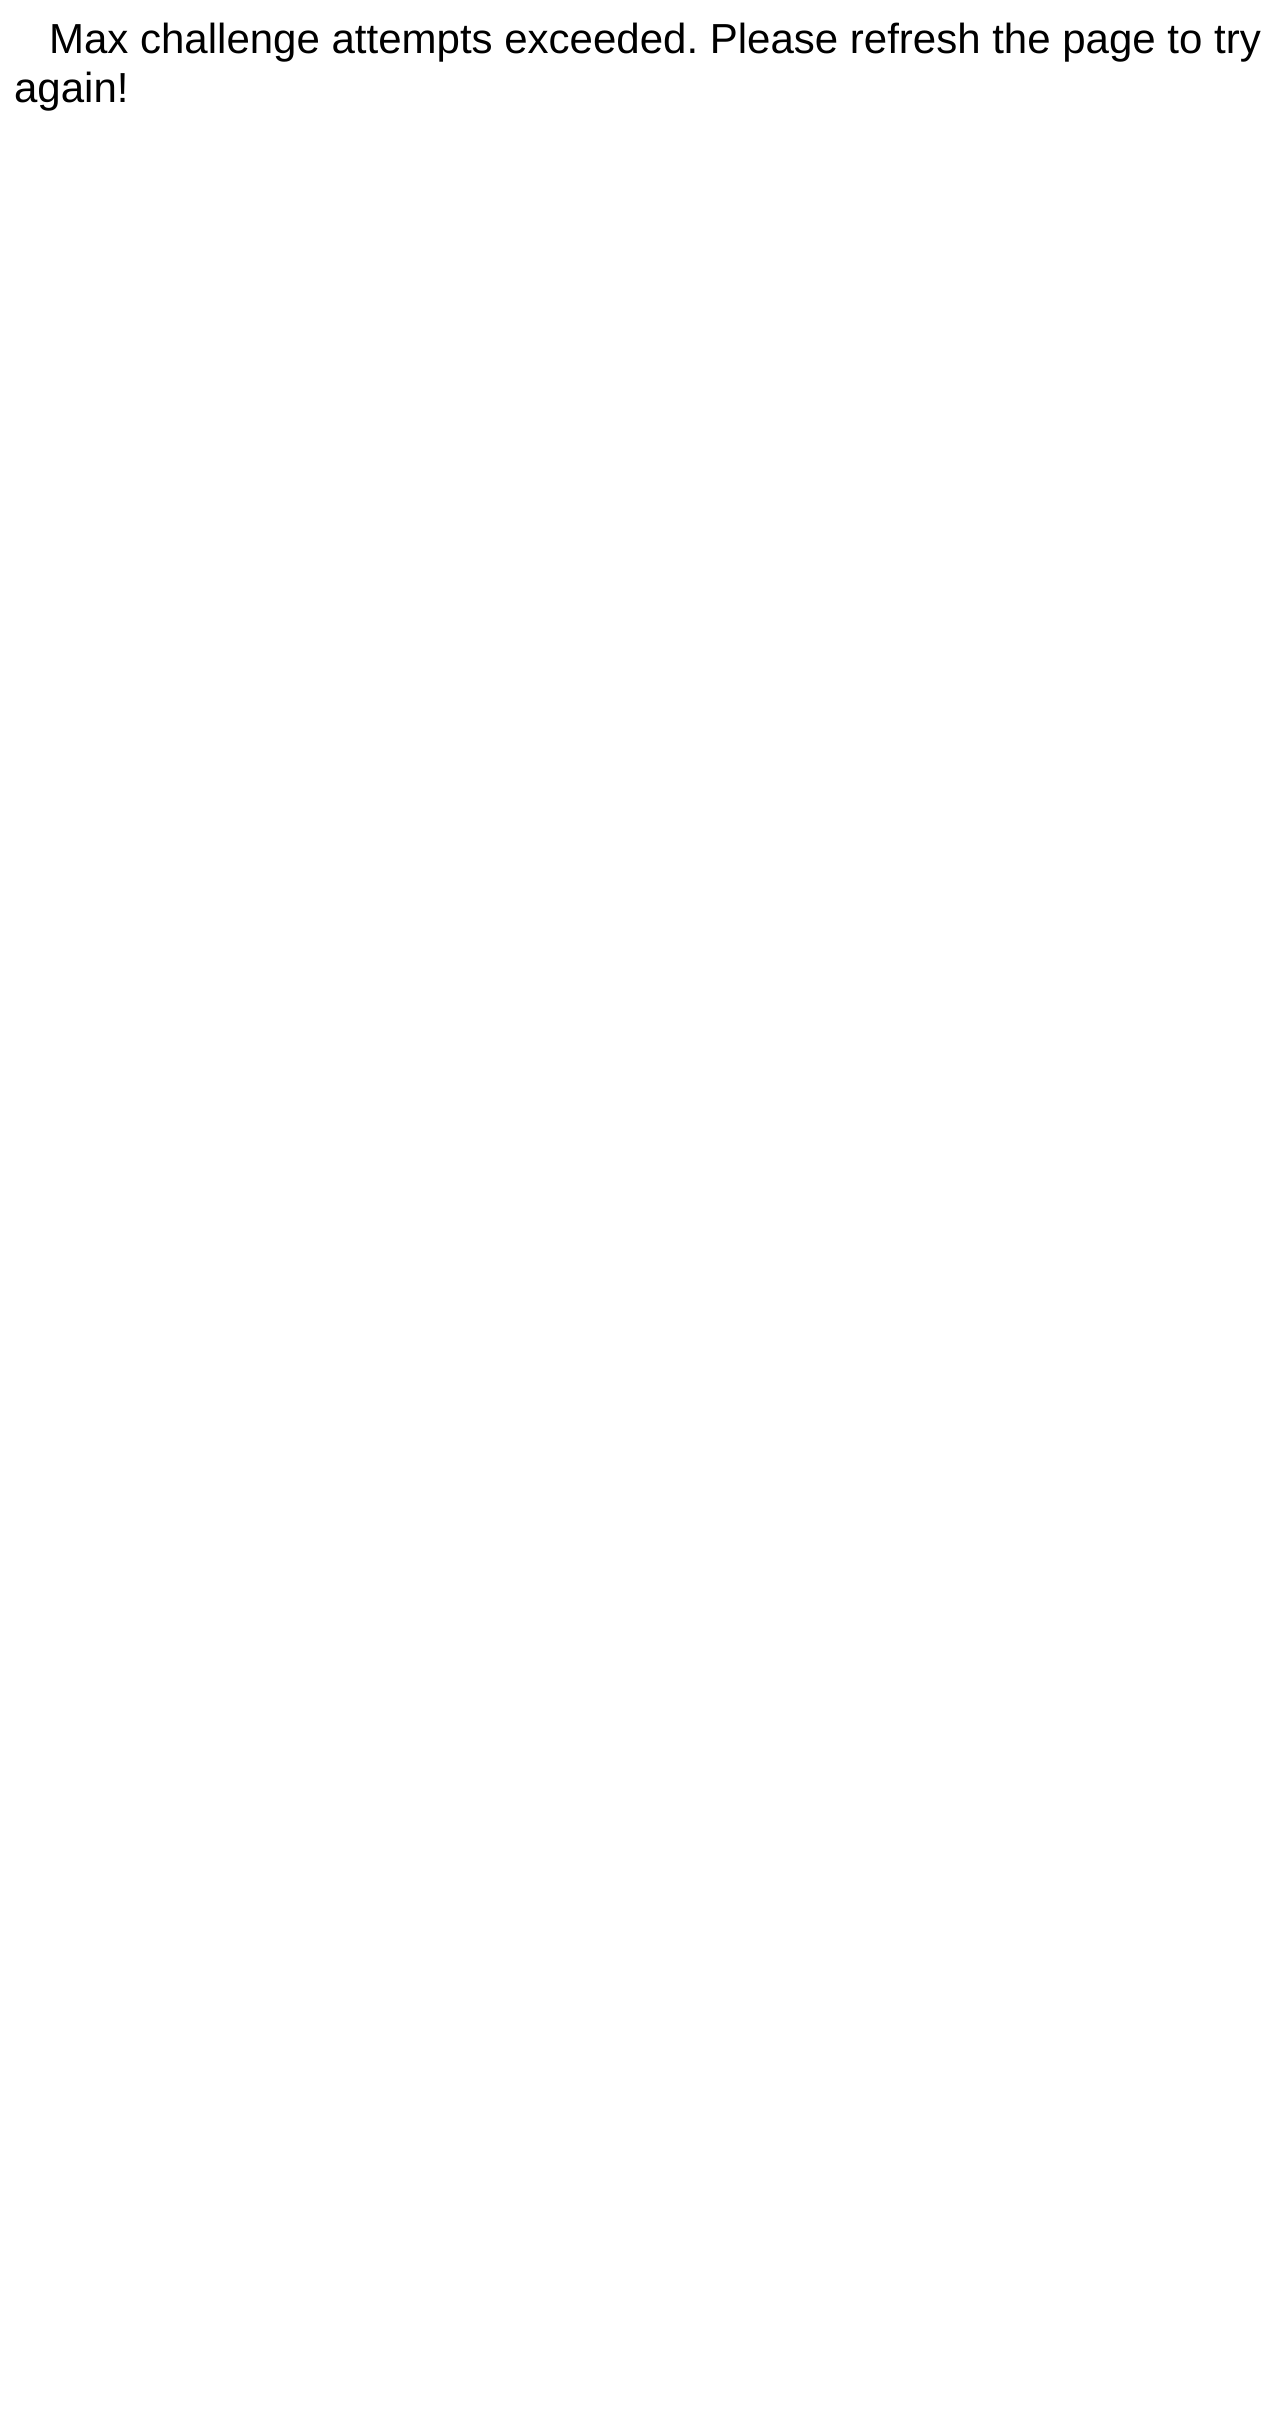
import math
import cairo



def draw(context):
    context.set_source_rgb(1, 1, 1)
    context.paint()
    context.select_font_face("Liberation Sans")
    context.set_font_size(42)
    context.set_source_rgb(0, 0, 0)
    context.move_to(49, 53)
    context.show_text("Max challenge attempts exceeded. Please refresh the page to try")
    context.move_to(14, 102)
    context.show_text("again!")


surface = cairo.ImageSurface(cairo.Format.RGB24, 1286, 2418)
context = cairo.Context(surface)
options = cairo.FontOptions()
options.set_hint_metrics(cairo.HintMetrics.OFF)
options.set_hint_style(cairo.HintStyle.NONE)
context.set_font_options(options)
context.set_miter_limit(4)
draw(context)
surface.write_to_png("out.png")
